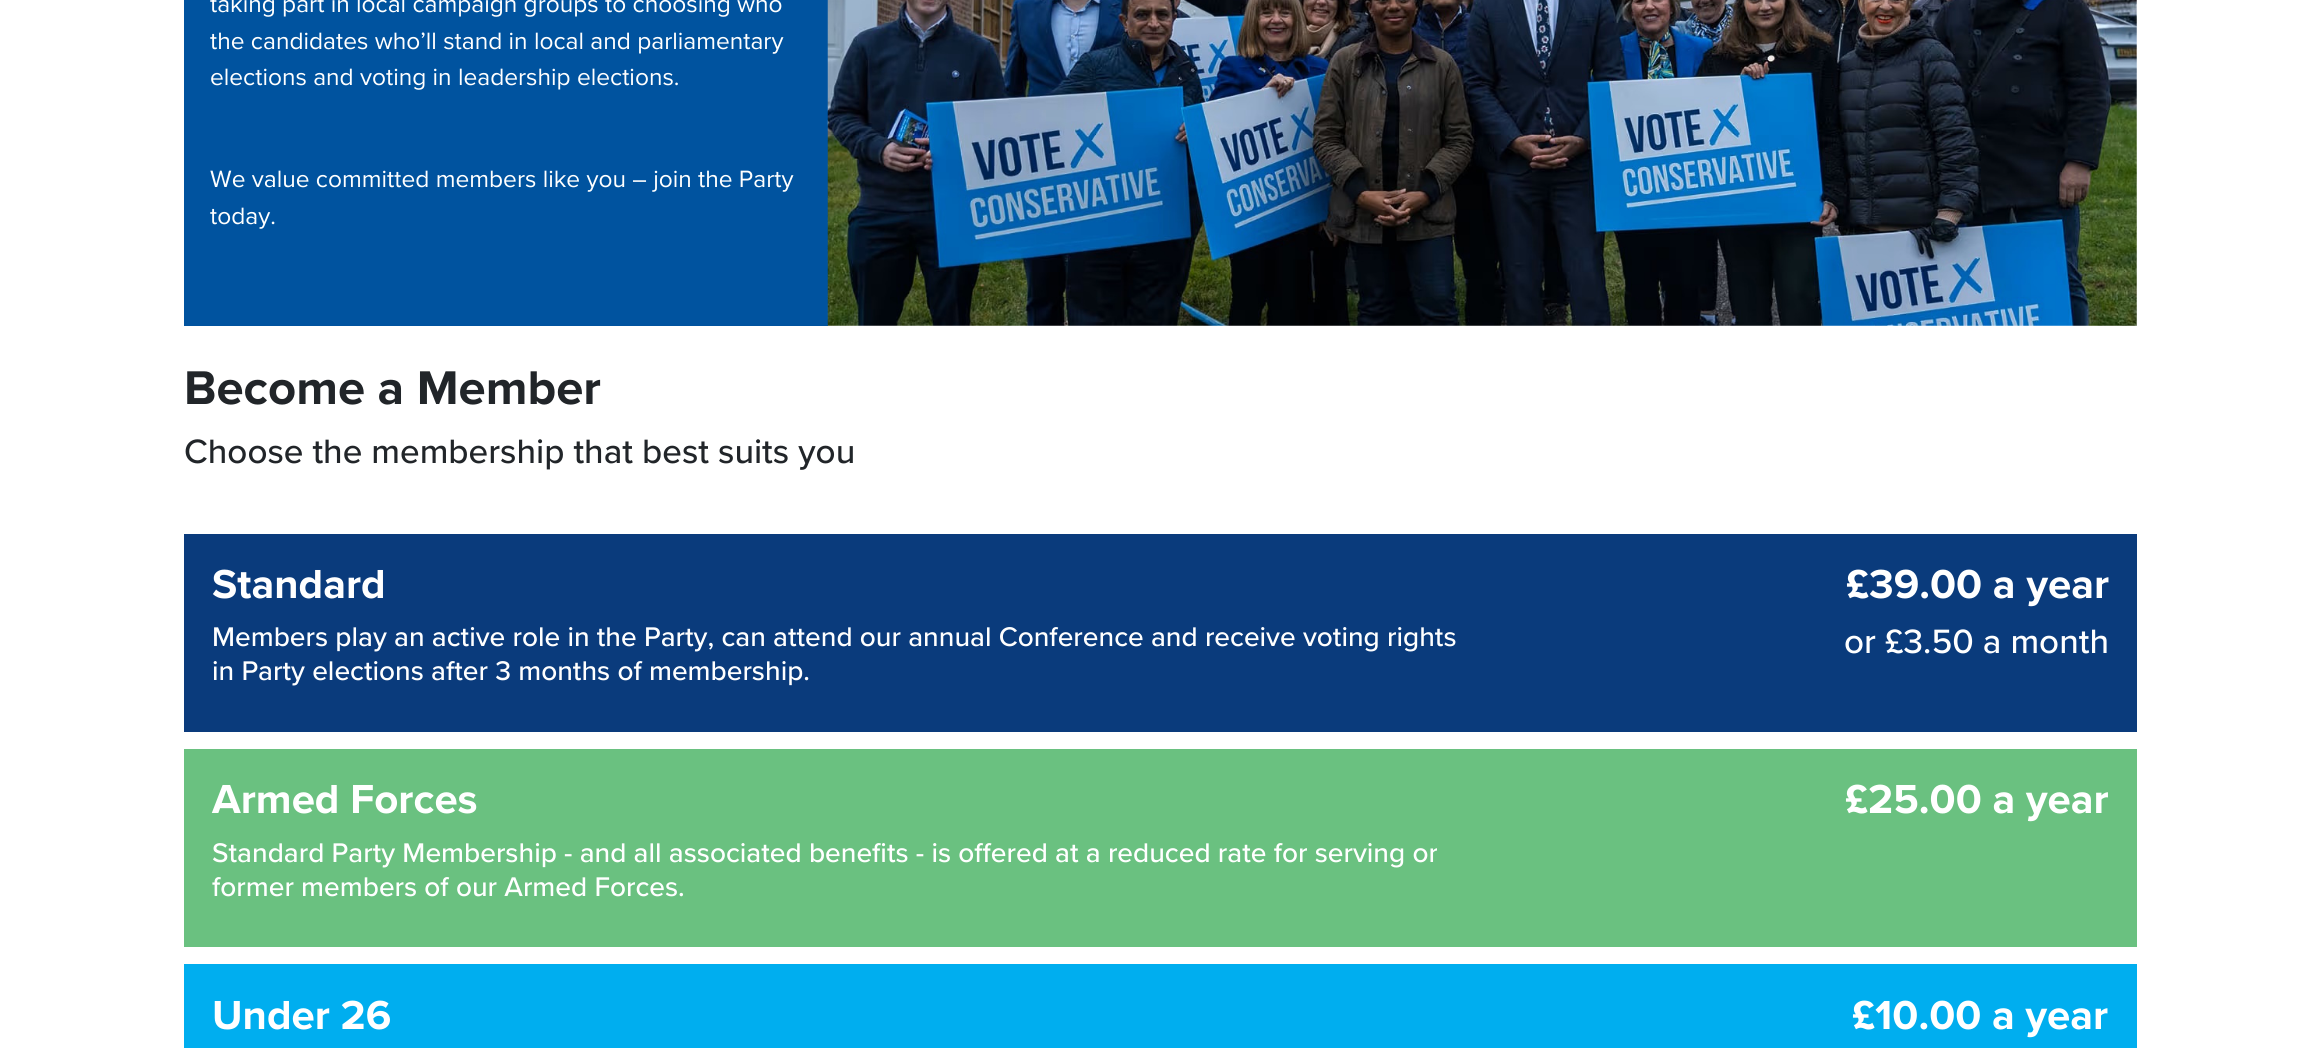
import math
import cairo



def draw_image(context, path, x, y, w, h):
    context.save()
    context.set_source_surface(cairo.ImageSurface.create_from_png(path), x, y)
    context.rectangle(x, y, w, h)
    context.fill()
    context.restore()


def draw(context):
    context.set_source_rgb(1, 1, 1)
    context.paint()
    context.set_source_rgb(0, 83 / 255, 159 / 255)
    context.rectangle(184, 0, 644, 326)
    context.fill()
    draw_image(context, "images/1.png", 827, 0, 1310, 326)
    context.set_source_rgb(10 / 255, 59 / 255, 124 / 255)
    context.rectangle(184, 534, 1953, 198)
    context.fill()
    context.set_source_rgb(106 / 255, 193 / 255, 128 / 255)
    context.rectangle(184, 749, 1953, 198)
    context.fill()
    context.set_source_rgb(0, 174 / 255, 239 / 255)
    context.rectangle(184, 964, 1953, 84)
    context.fill()
    context.select_font_face("Proxima Nova")
    context.set_font_size(24.5)
    context.set_source_rgb(1, 1, 1)
    context.move_to(210, 12)
    context.show_text("taking part in local campaign groups to choosing who")
    context.move_to(210, 49)
    context.show_text("the candidates who’ll stand in local and parliamentary")
    context.move_to(210, 85)
    context.show_text("elections and voting in leadership elections.")
    context.move_to(210, 187)
    context.show_text("We value committed members like you – join the Party")
    context.move_to(210, 224)
    context.show_text("today.")
    context.select_font_face("Proxima Nova", cairo.FontSlant.NORMAL, cairo.FontWeight.BOLD)
    context.set_font_size(49)
    context.set_source_rgb(33 / 255, 37 / 255, 41 / 255)
    context.move_to(184, 404)
    context.show_text("Become a Member")
    context.select_font_face("Proxima Nova Medium")
    context.set_font_size(35)
    context.move_to(184, 463)
    context.show_text("Choose the membership that best suits you")
    context.select_font_face("Proxima Nova", cairo.FontSlant.NORMAL, cairo.FontWeight.BOLD)
    context.set_font_size(42)
    context.set_source_rgb(1, 1, 1)
    context.move_to(212, 598)
    context.show_text("Standard")
    context.select_font_face("Proxima Nova Medium")
    context.set_font_size(28)
    context.move_to(212, 646)
    context.show_text("Members play an active role in the Party, can attend our annual Conference and receive voting rights")
    context.move_to(212, 680)
    context.show_text("in Party elections after 3 months of membership.")
    context.select_font_face("Proxima Nova", cairo.FontSlant.NORMAL, cairo.FontWeight.BOLD)
    context.set_font_size(42)
    context.move_to(1846, 598)
    context.show_text("£39.00 a year")
    context.select_font_face("Proxima Nova Medium")
    context.set_font_size(35)
    context.move_to(1844, 653)
    context.show_text("or £3.50 a month")
    context.select_font_face("Proxima Nova", cairo.FontSlant.NORMAL, cairo.FontWeight.BOLD)
    context.set_font_size(42)
    context.move_to(212, 813)
    context.show_text("Armed Forces")
    context.select_font_face("Proxima Nova Medium")
    context.set_font_size(28)
    context.move_to(212, 862)
    context.show_text("Standard Party Membership - and all associated benefits - is offered at a reduced rate for serving or")
    context.move_to(212, 896)
    context.show_text("former members of our Armed Forces.")
    context.select_font_face("Proxima Nova", cairo.FontSlant.NORMAL, cairo.FontWeight.BOLD)
    context.set_font_size(42)
    context.move_to(1845, 813)
    context.show_text("£25.00 a year")
    context.move_to(212, 1029)
    context.show_text("Under 26")
    context.move_to(1852, 1029)
    context.show_text("£10.00 a year")


surface = cairo.ImageSurface(cairo.Format.RGB24, 2320, 1048)
context = cairo.Context(surface)
options = cairo.FontOptions()
options.set_hint_metrics(cairo.HintMetrics.OFF)
options.set_hint_style(cairo.HintStyle.NONE)
context.set_font_options(options)
context.set_miter_limit(4)
draw(context)
surface.write_to_png("out.png")
